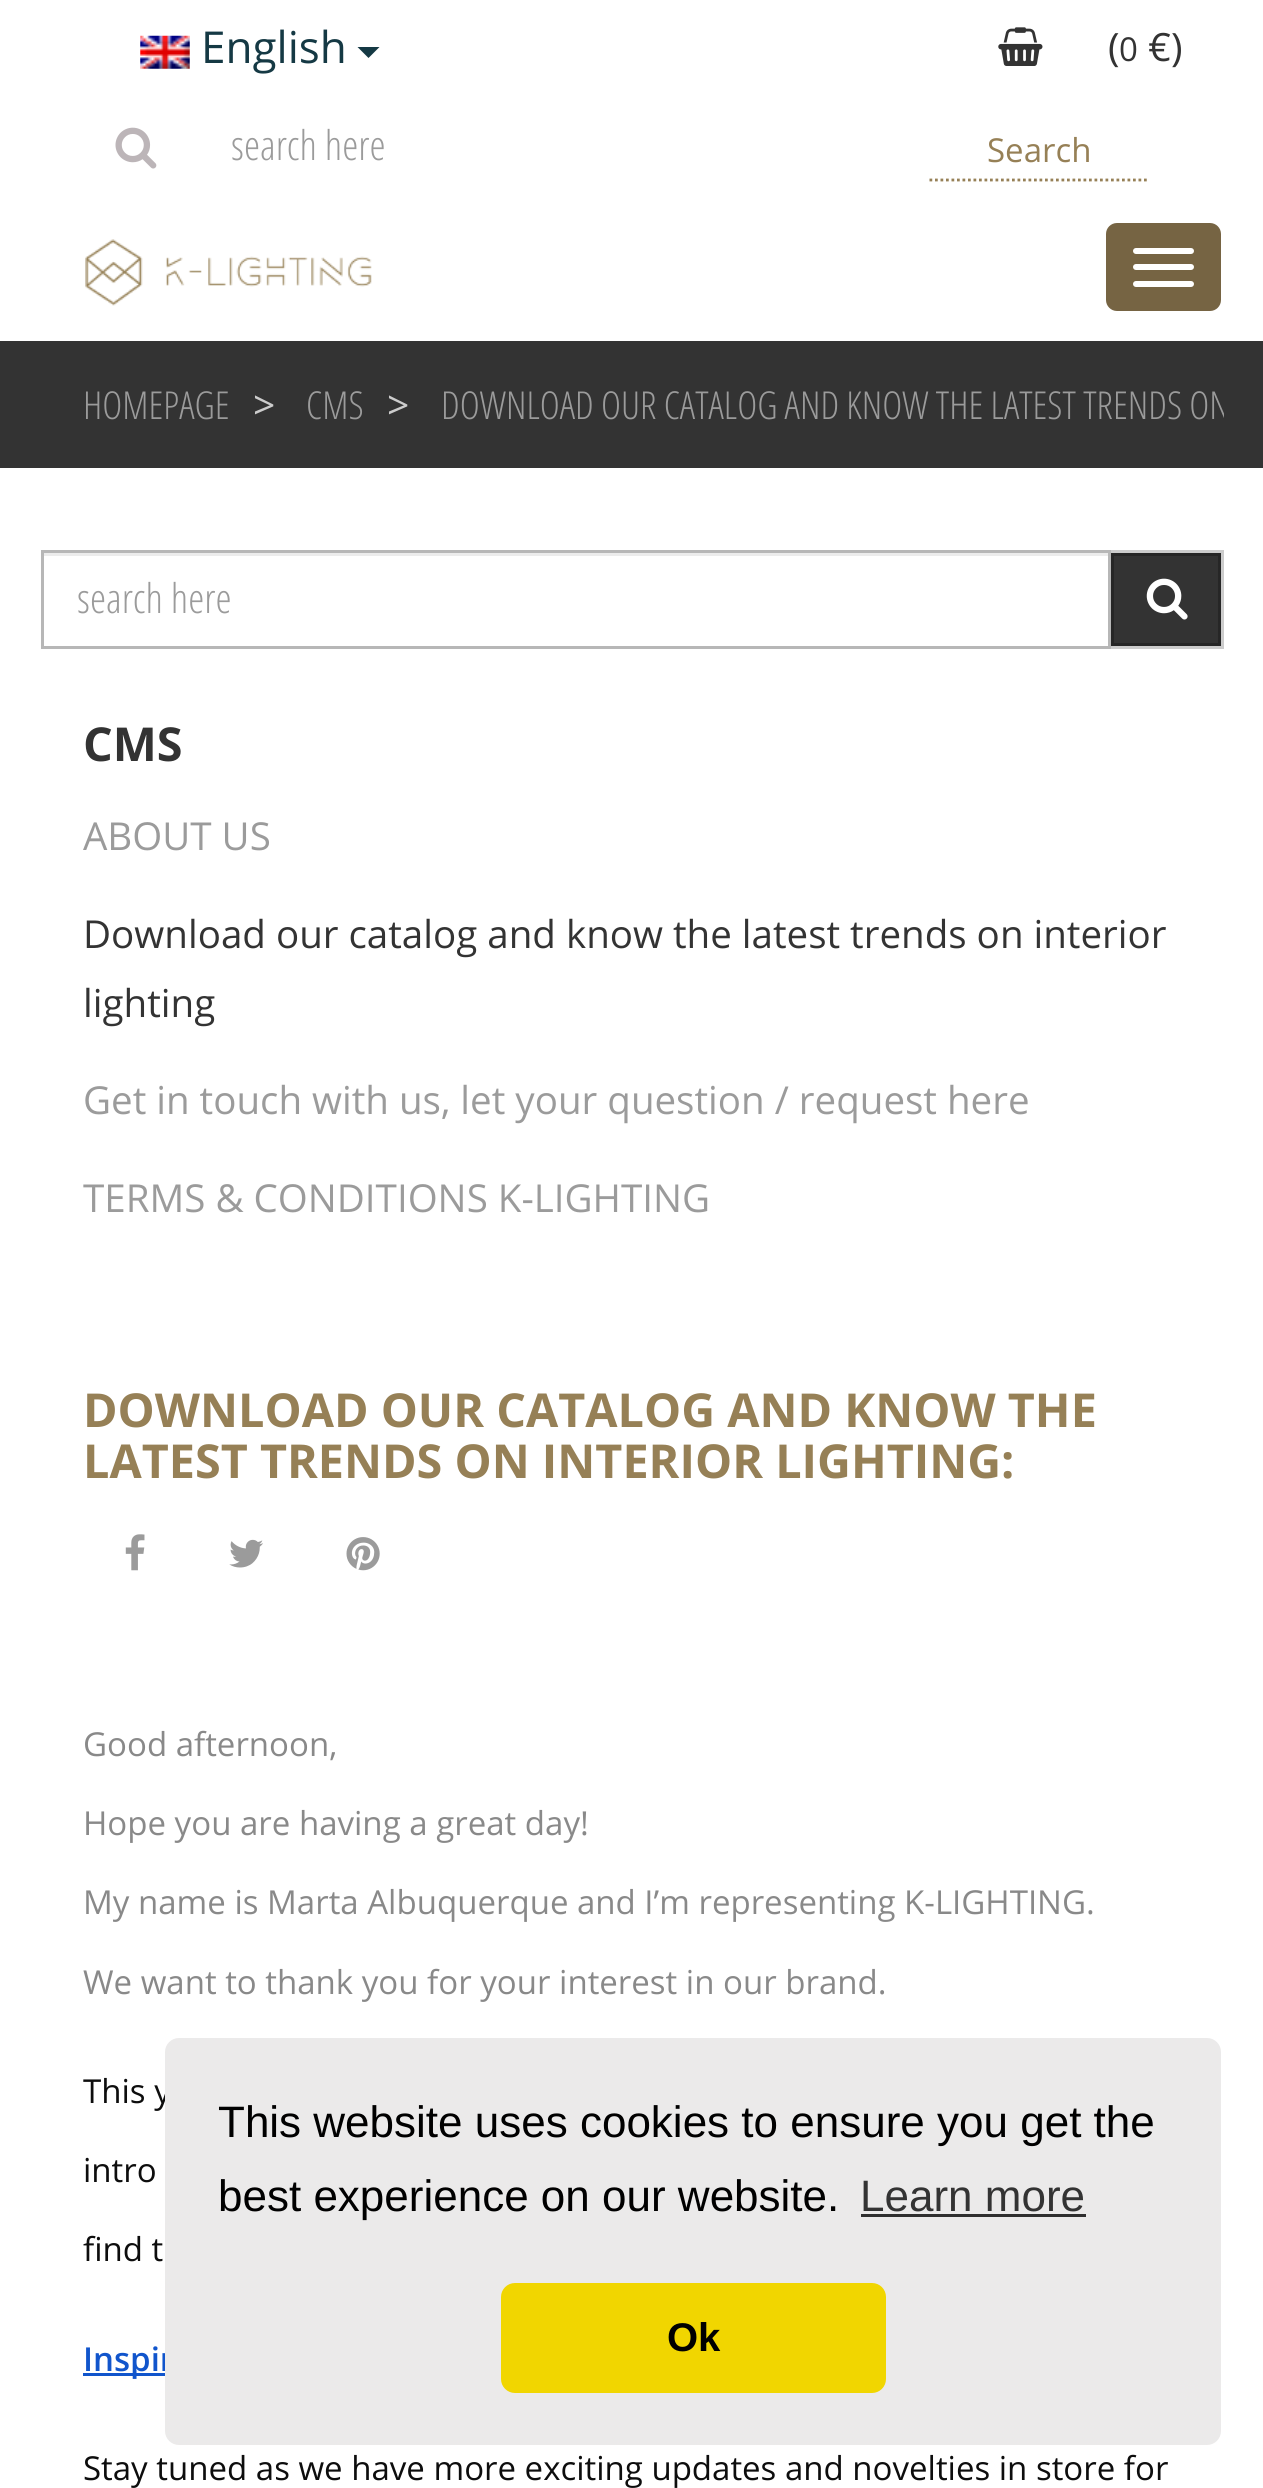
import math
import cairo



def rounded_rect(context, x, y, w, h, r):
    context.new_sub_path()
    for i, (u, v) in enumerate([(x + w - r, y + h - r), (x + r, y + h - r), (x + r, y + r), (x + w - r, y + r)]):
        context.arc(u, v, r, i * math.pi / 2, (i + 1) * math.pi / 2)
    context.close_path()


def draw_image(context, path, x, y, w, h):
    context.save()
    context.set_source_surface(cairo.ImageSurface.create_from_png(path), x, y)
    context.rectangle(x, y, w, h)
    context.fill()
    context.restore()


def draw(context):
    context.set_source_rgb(1, 1, 1)
    context.paint()
    draw_image(context, "images/1.png", 140, 35, 50, 34)
    context.set_source_rgb(21 / 255, 57 / 255, 68 / 255)
    context.new_path()
    context.move_to(357.5, 47)
    context.line_to(379.5, 47)
    context.line_to(368.5, 58)
    context.close_path()
    context.fill()
    draw_image(context, "images/2.png", 998, 27, 45, 39)
    draw_image(context, "images/3.png", 115, 127, 42, 42)
    context.new_path()
    context.move_to(929.5, 180)
    context.line_to(1149.5, 180)
    context.set_source_rgb(150 / 255, 128 / 255, 86 / 255)
    context.set_line_width(2.8)
    context.set_dash([2.75, 2.75])
    context.stroke()
    draw_image(context, "images/4.png", 85, 239, 287, 67)
    context.set_source_rgb(118 / 255, 100 / 255, 67 / 255)
    rounded_rect(context, 1106, 223, 115, 88, 11)
    context.fill()
    context.set_source_rgb(1, 1, 1)
    rounded_rect(context, 1133, 248, 61, 6, 3)
    context.fill()
    rounded_rect(context, 1133, 264, 61, 6, 3)
    context.fill()
    rounded_rect(context, 1133, 281, 61, 6, 3)
    context.fill()
    context.set_source_rgb(51 / 255, 51 / 255, 51 / 255)
    context.rectangle(0, 341, 1263, 127)
    context.fill()
    context.set_source_rgb(236 / 255, 236 / 255, 236 / 255)
    context.rectangle(44, 553, 1064, 3)
    context.fill()
    context.rectangle(42.5, 551.5, 1067, 96)
    context.set_source_rgb(183 / 255, 183 / 255, 183 / 255)
    context.set_line_width(3)
    context.set_dash([])
    context.stroke()
    context.set_source_rgb(204 / 255, 204 / 255, 204 / 255)
    context.rectangle(1111, 550, 113, 3)
    context.fill()
    context.rectangle(1221, 550, 3, 99)
    context.fill()
    context.rectangle(1111, 646, 113, 3)
    context.fill()
    context.set_source_rgb(51 / 255, 51 / 255, 51 / 255)
    context.rectangle(1112.5, 554.5, 107, 90)
    context.fill_preserve()
    context.set_source_rgb(38 / 255, 38 / 255, 38 / 255)
    context.stroke()
    draw_image(context, "images/5.png", 1146, 578, 42, 42)
    draw_image(context, "images/6.png", 125, 1534, 20, 37)
    draw_image(context, "images/7.png", 229, 1539, 34, 29)
    draw_image(context, "images/8.png", 346, 1537, 34, 34)
    context.set_source_rgb(17 / 255, 85 / 255, 204 / 255)
    context.rectangle(83, 2373, 82, 3)
    context.fill()
    context.select_font_face("Open Sans")
    context.set_font_size(44)
    context.set_source_rgb(21 / 255, 57 / 255, 68 / 255)
    context.move_to(201, 63)
    context.show_text("English")
    context.set_font_size(39)
    context.set_source_rgb(51 / 255, 51 / 255, 51 / 255)
    context.move_to(1108, 61)
    context.show_text("(")
    context.set_font_size(33)
    context.move_to(1119, 61)
    context.show_text("0")
    context.set_font_size(39)
    context.move_to(1148, 61)
    context.show_text("€)")
    context.select_font_face("Open Sans Light")
    context.set_font_size(41)
    context.set_source_rgb(155 / 255, 155 / 255, 155 / 255)
    context.move_to(231, 160)
    context.show_text("search here")
    context.select_font_face("Open Sans")
    context.set_font_size(33)
    context.set_source_rgb(150 / 255, 128 / 255, 86 / 255)
    context.move_to(987, 162)
    context.show_text("Search")
    context.select_font_face("Open Sans Light")
    context.set_font_size(38.5)
    context.set_source_rgb(155 / 255, 155 / 255, 155 / 255)
    context.move_to(83, 419)
    context.show_text("HOMEPAGE")
    context.select_font_face("Open Sans")
    context.set_font_size(39)
    context.set_source_rgb(204 / 255, 204 / 255, 204 / 255)
    context.move_to(253, 419)
    context.show_text(">")
    context.select_font_face("Open Sans Light")
    context.set_font_size(38.5)
    context.set_source_rgb(155 / 255, 155 / 255, 155 / 255)
    context.move_to(306, 419)
    context.show_text("CMS")
    context.select_font_face("Open Sans")
    context.set_font_size(39)
    context.set_source_rgb(204 / 255, 204 / 255, 204 / 255)
    context.move_to(387, 419)
    context.show_text(">")
    context.save()
    context.rectangle(41, 341, 1183, 127)
    context.clip()
    context.select_font_face("Open Sans Light")
    context.set_font_size(38.5)
    context.set_source_rgb(155 / 255, 155 / 255, 155 / 255)
    context.move_to(441, 419)
    context.show_text("DOWNLOAD OUR CATALOG AND KNOW THE LATEST TRENDS ON")
    context.restore()
    context.select_font_face("Open Sans Light")
    context.set_font_size(41)
    context.set_source_rgb(155 / 255, 155 / 255, 155 / 255)
    context.move_to(77, 613)
    context.show_text("search here")
    context.select_font_face("Open Sans", cairo.FontSlant.NORMAL, cairo.FontWeight.BOLD)
    context.set_font_size(46.75)
    context.set_source_rgb(51 / 255, 51 / 255, 51 / 255)
    context.move_to(83, 761)
    context.show_text("CMS")
    context.select_font_face("Open Sans")
    context.set_font_size(38.5)
    context.set_source_rgb(155 / 255, 155 / 255, 155 / 255)
    context.move_to(83, 850)
    context.show_text("ABOUT US")
    context.set_source_rgb(51 / 255, 51 / 255, 51 / 255)
    context.move_to(83, 948)
    context.show_text("Download our catalog and know the latest trends on interior")
    context.move_to(83, 1017)
    context.show_text("lighting")
    context.set_source_rgb(155 / 255, 155 / 255, 155 / 255)
    context.move_to(83, 1114)
    context.show_text("Get in touch with us, let your question / request here")
    context.move_to(83, 1212)
    context.show_text("TERMS & CONDITIONS K-LIGHTING")
    context.select_font_face("Open Sans", cairo.FontSlant.NORMAL, cairo.FontWeight.BOLD)
    context.set_font_size(46.75)
    context.set_source_rgb(150 / 255, 128 / 255, 86 / 255)
    context.move_to(83, 1427)
    context.show_text("DOWNLOAD OUR CATALOG AND KNOW THE")
    context.move_to(83, 1478)
    context.show_text("LATEST TRENDS ON INTERIOR LIGHTING:")
    context.select_font_face("Open Sans")
    context.set_font_size(33)
    context.set_source_rgb(137 / 255, 137 / 255, 137 / 255)
    context.move_to(83, 1756)
    context.show_text("Good afternoon,")
    context.move_to(83, 1835)
    context.show_text("Hope you are having a great day!")
    context.move_to(83, 1914)
    context.show_text("My name is Marta Albuquerque and I’m representing K-LIGHTING.")
    context.move_to(83, 1994)
    context.show_text("We want to thank you for your interest in our brand.")
    context.set_source_rgb(13 / 255, 13 / 255, 13 / 255)
    context.move_to(83, 2103)
    context.show_text("This y")
    context.move_to(83, 2182)
    context.show_text("intro")
    context.move_to(83, 2261)
    context.show_text("find t")
    context.select_font_face("Open Sans SemiBold")
    context.set_source_rgb(17 / 255, 85 / 255, 204 / 255)
    context.move_to(83, 2371)
    context.show_text("Inspir")
    context.select_font_face("Open Sans")
    context.set_source_rgb(13 / 255, 13 / 255, 13 / 255)
    context.move_to(83, 2480)
    context.show_text("Stay tuned as we have more exciting updates and novelties in store for")
    context.set_source_rgb(235 / 255, 234 / 255, 234 / 255)
    rounded_rect(context, 165, 2038, 1056, 407, 14)
    context.fill()
    context.select_font_face("Liberation Sans")
    context.set_font_size(44)
    context.set_source_rgb(0, 0, 0)
    context.move_to(218, 2137)
    context.show_text("This website uses cookies to ensure you get the")
    context.move_to(218, 2211)
    context.show_text("best experience on our website.")
    context.set_source_rgb(51 / 255, 51 / 255, 51 / 255)
    context.move_to(860, 2211)
    context.show_text("Learn more")
    context.set_source_rgb(47 / 255, 47 / 255, 47 / 255)
    context.rectangle(861, 2214, 225, 3)
    context.fill()
    context.set_source_rgb(241 / 255, 214 / 255, 0)
    rounded_rect(context, 501, 2283, 385, 110, 14)
    context.fill()
    context.select_font_face("Liberation Sans", cairo.FontSlant.NORMAL, cairo.FontWeight.BOLD)
    context.set_font_size(40)
    context.set_source_rgb(0, 0, 0)
    context.move_to(667, 2351)
    context.show_text("Ok")


surface = cairo.ImageSurface(cairo.Format.RGB24, 1263, 2488)
context = cairo.Context(surface)
options = cairo.FontOptions()
options.set_hint_metrics(cairo.HintMetrics.OFF)
options.set_hint_style(cairo.HintStyle.NONE)
context.set_font_options(options)
context.set_miter_limit(4)
draw(context)
surface.write_to_png("out.png")
